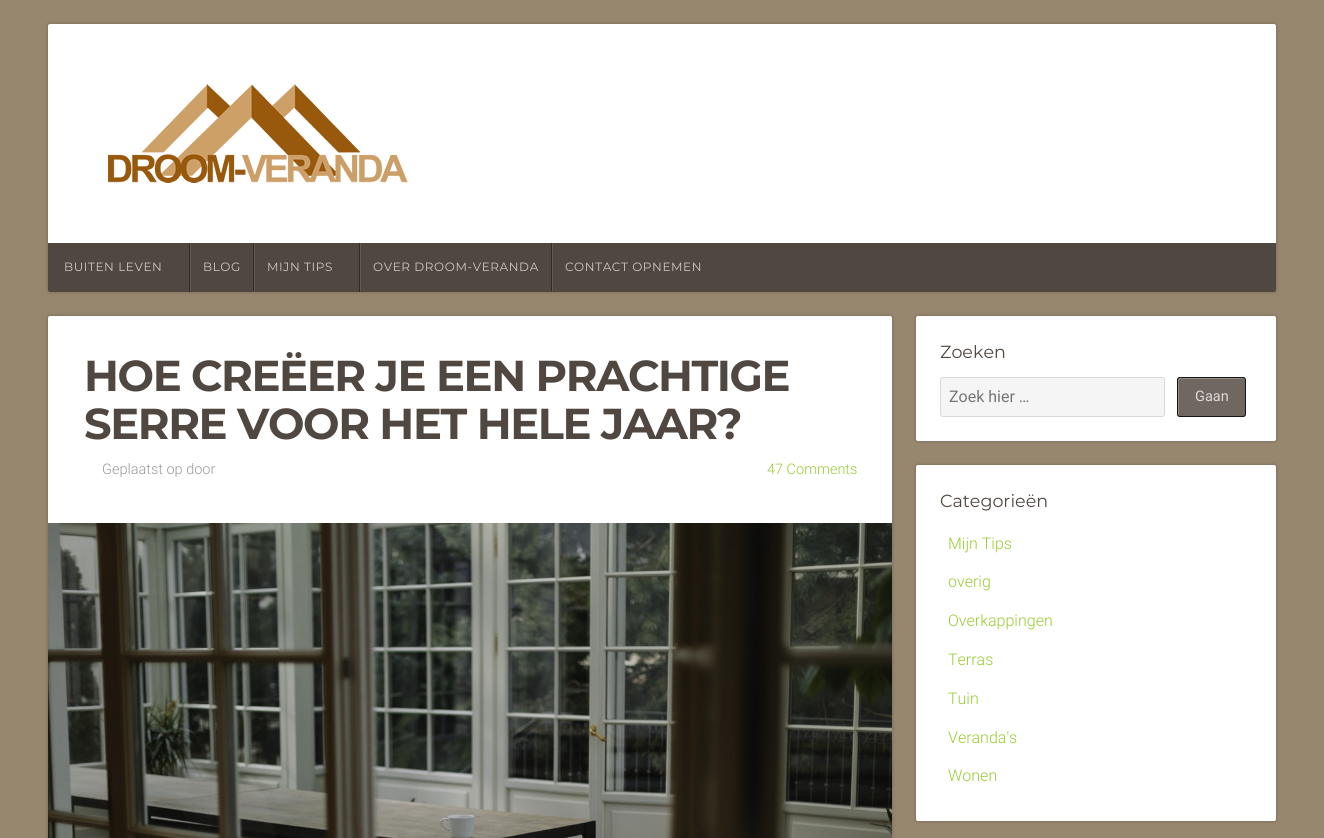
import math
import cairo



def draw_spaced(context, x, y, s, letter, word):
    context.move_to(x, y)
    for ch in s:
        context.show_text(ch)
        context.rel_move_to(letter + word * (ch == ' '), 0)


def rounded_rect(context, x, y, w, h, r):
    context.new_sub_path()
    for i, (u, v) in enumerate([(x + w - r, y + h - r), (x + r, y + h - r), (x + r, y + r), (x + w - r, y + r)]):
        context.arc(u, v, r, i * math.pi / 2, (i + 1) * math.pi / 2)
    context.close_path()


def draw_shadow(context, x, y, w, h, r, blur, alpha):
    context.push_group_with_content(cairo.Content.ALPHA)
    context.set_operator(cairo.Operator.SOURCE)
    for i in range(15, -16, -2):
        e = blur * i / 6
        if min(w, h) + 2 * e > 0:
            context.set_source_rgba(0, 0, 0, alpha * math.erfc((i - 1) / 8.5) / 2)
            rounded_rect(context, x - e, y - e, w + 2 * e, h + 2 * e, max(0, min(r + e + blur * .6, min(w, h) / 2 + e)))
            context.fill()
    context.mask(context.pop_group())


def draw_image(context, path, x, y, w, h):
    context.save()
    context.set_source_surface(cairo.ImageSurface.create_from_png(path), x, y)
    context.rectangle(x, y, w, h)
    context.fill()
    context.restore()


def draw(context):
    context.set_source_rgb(152 / 255, 135 / 255, 111 / 255)
    context.paint()
    context.set_source_rgb(0, 0, 0)
    draw_shadow(context, 48, 24, 1228, 268, 2, 2, 0.24)
    context.set_source_rgb(1, 1, 1)
    context.new_path()
    context.move_to(50, 24)
    context.line_to(1274, 24)
    context.curve_to(1275, 24, 1276, 25, 1276, 26)
    context.line_to(1276, 243)
    context.line_to(48, 243)
    context.line_to(48, 26)
    context.curve_to(48, 25, 49, 24, 50, 24)
    context.close_path()
    context.fill()
    draw_image(context, "images/1.png", 108, 84, 300, 99)
    context.set_source_rgb(80 / 255, 71 / 255, 65 / 255)
    context.new_path()
    context.move_to(48, 243)
    context.line_to(1276, 243)
    context.line_to(1276, 290)
    context.curve_to(1276, 291, 1275, 292, 1274, 292)
    context.line_to(50, 292)
    context.curve_to(49, 292, 48, 291, 48, 290)
    context.close_path()
    context.fill()
    context.set_source_rgb(48 / 255, 43 / 255, 39 / 255)
    context.rectangle(189, 244, 1, 48)
    context.fill()
    context.rectangle(253, 243, 1, 48)
    context.fill()
    context.set_source_rgb(98 / 255, 89 / 255, 84 / 255)
    context.rectangle(190, 243, 1, 48)
    context.fill()
    context.set_source_rgb(48 / 255, 43 / 255, 39 / 255)
    context.rectangle(359, 243, 1, 49)
    context.fill()
    context.set_source_rgb(98 / 255, 89 / 255, 84 / 255)
    context.rectangle(254, 243, 1, 49)
    context.fill()
    context.set_source_rgb(48 / 255, 43 / 255, 39 / 255)
    context.rectangle(551, 243, 1, 48)
    context.fill()
    context.set_source_rgb(98 / 255, 89 / 255, 84 / 255)
    context.rectangle(360, 243, 1, 48)
    context.fill()
    context.rectangle(552, 243, 1, 48)
    context.fill()
    context.set_source_rgb(0, 0, 0)
    draw_shadow(context, 48, 316, 844, 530, 2, 2, 0.24)
    context.set_source_rgb(1, 1, 1)
    rounded_rect(context, 48, 316, 844, 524, 2)
    context.fill()
    draw_image(context, "images/2.png", 48, 523, 844, 315)
    context.set_source_rgb(0, 0, 0)
    draw_shadow(context, 916, 316, 360, 125, 2, 2, 0.24)
    context.set_source_rgb(1, 1, 1)
    rounded_rect(context, 916, 316, 360, 125, 2)
    context.fill()
    context.set_source_rgb(245 / 255, 245 / 255, 245 / 255)
    rounded_rect(context, 940, 377, 225, 40, 3)
    context.fill()
    rounded_rect(context, 940.5, 377.5, 224, 39, 2.5)
    context.set_source_rgba(0, 0, 0, 0.12)
    context.set_line_width(1)
    context.stroke()
    context.set_source_rgb(112 / 255, 103 / 255, 96 / 255)
    rounded_rect(context, 1177, 377, 69, 40, 3)
    context.fill()
    context.set_source_rgb(146 / 255, 139 / 255, 134 / 255)
    context.new_path()
    context.move_to(1181, 379)
    context.line_to(1245, 379)
    context.line_to(1243, 378)
    context.line_to(1190, 378)
    context.curve_to(1178, 378, 1178, 375, 1178, 386)
    context.line_to(1178, 408)
    context.curve_to(1178, 409, 1177, 415, 1179, 416)
    context.line_to(1179, 387)
    context.curve_to(1179, 386, 1178, 379, 1181, 379)
    context.close_path()
    context.fill()
    rounded_rect(context, 1177.5, 377.5, 68, 39, 2.5)
    context.set_source_rgba(0, 0, 0, 0.8)
    context.stroke()
    context.set_source_rgb(0, 0, 0)
    draw_shadow(context, 916, 465, 360, 356, 2, 2, 0.24)
    context.set_source_rgb(1, 1, 1)
    rounded_rect(context, 916, 465, 360, 356, 2)
    context.fill()
    context.select_font_face("Montserrat")
    context.set_font_size(12)
    context.set_source_rgb(203 / 255, 200 / 255, 198 / 255)
    draw_spaced(context, 64, 271, "BUITEN LEVEN", 0.6, 0)
    draw_spaced(context, 203, 271, "BLOG", 0.6, 0)
    draw_spaced(context, 267, 271, "MIJN TIPS", 0.6, 0)
    draw_spaced(context, 373, 271, "OVER DROOM-VERANDA", 0.6, 0)
    draw_spaced(context, 565, 271, "CONTACT OPNEMEN", 0.6, 0)
    context.select_font_face("Montserrat", cairo.FontSlant.NORMAL, cairo.FontWeight.BOLD)
    context.set_font_size(43.25)
    context.set_source_rgb(80 / 255, 71 / 255, 65 / 255)
    draw_spaced(context, 84, 391, "HOE CREËER JE EEN PRACHTIGE", -1.4, 0)
    draw_spaced(context, 84, 439, "SERRE VOOR HET HELE JAAR?", -1.4, 0)
    context.select_font_face("Roboto Light")
    context.set_font_size(14.5)
    context.set_source_rgb(153 / 255, 153 / 255, 153 / 255)
    context.move_to(102, 474)
    context.show_text("Geplaatst op door")
    context.set_source_rgb(153 / 255, 204 / 255, 51 / 255)
    context.move_to(767, 474)
    context.show_text("47 Comments")
    context.select_font_face("Montserrat")
    context.set_font_size(17.5)
    context.set_source_rgb(80 / 255, 71 / 255, 65 / 255)
    context.move_to(940, 358)
    context.show_text("Zoeken")
    context.select_font_face("Roboto")
    context.set_font_size(16)
    context.set_source_rgb(117 / 255, 117 / 255, 117 / 255)
    context.move_to(949, 402)
    context.show_text("Zoek hier …")
    context.set_font_size(14.5)
    context.set_source_rgb(219 / 255, 217 / 255, 215 / 255)
    context.move_to(1195, 401)
    context.show_text("Gaan")
    context.select_font_face("Montserrat")
    context.set_font_size(17.5)
    context.set_source_rgb(80 / 255, 71 / 255, 65 / 255)
    context.move_to(940, 507)
    context.show_text("Categorieën")
    context.select_font_face("Roboto Light")
    context.set_font_size(16)
    context.set_source_rgb(153 / 255, 204 / 255, 51 / 255)
    context.move_to(948, 549)
    context.show_text("Mijn Tips")
    context.move_to(948, 587)
    context.show_text("overig")
    context.move_to(948, 626)
    context.show_text("Overkappingen")
    context.move_to(948, 665)
    context.show_text("Terras")
    context.move_to(948, 704)
    context.show_text("Tuin")
    context.move_to(948, 743)
    context.show_text("Veranda's")
    context.move_to(948, 781)
    context.show_text("Wonen")


surface = cairo.ImageSurface(cairo.Format.RGB24, 1324, 838)
context = cairo.Context(surface)
options = cairo.FontOptions()
options.set_hint_metrics(cairo.HintMetrics.OFF)
options.set_hint_style(cairo.HintStyle.NONE)
context.set_font_options(options)
context.set_miter_limit(4)
draw(context)
surface.write_to_png("out.png")
